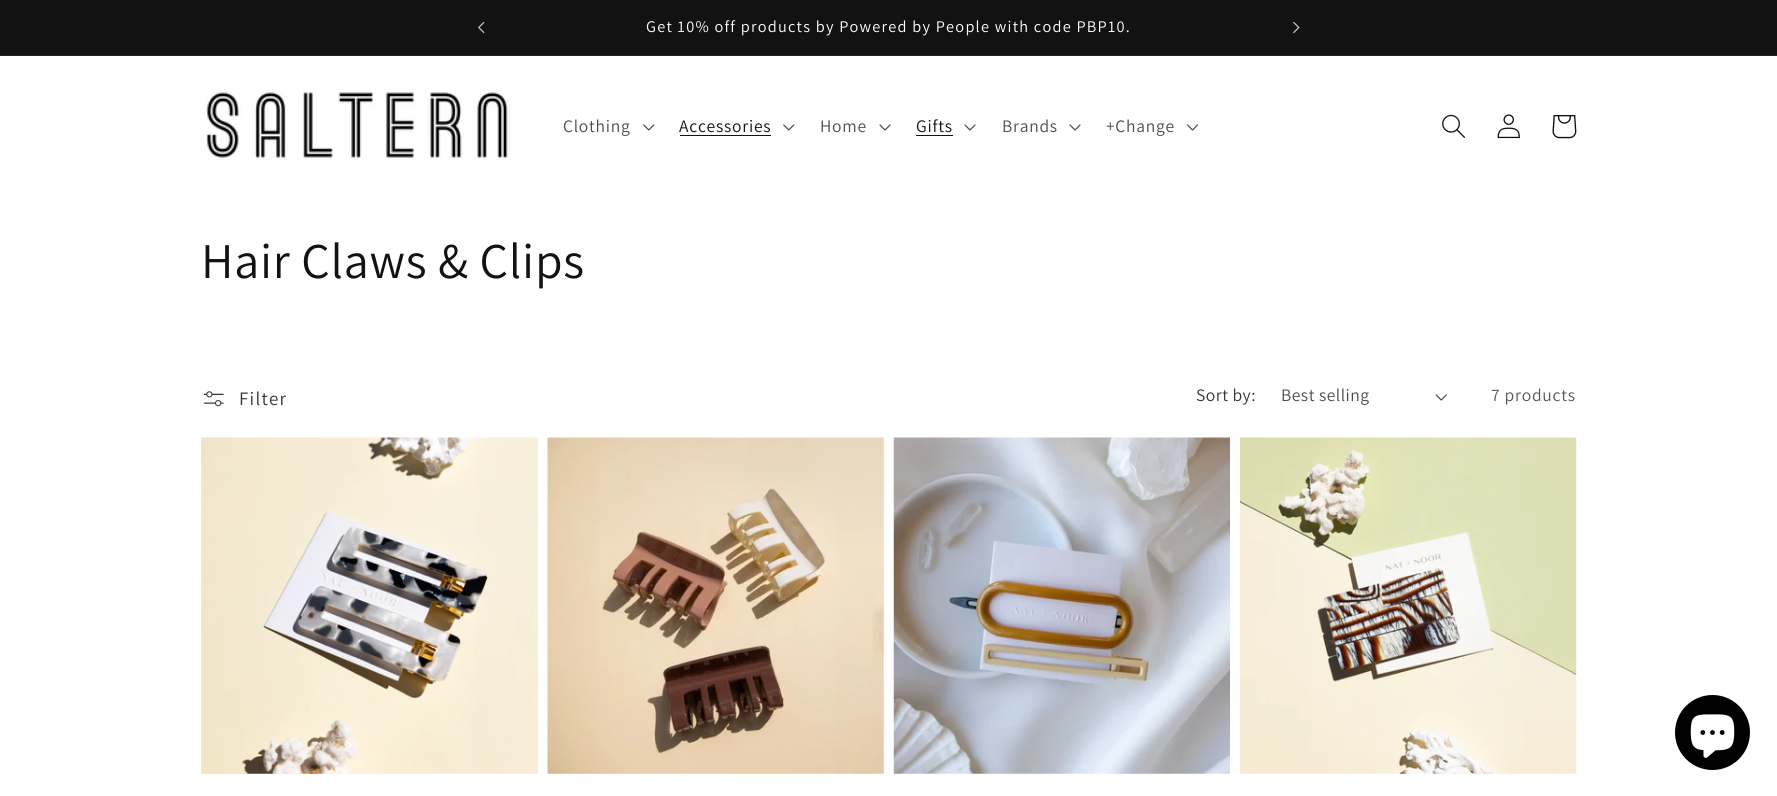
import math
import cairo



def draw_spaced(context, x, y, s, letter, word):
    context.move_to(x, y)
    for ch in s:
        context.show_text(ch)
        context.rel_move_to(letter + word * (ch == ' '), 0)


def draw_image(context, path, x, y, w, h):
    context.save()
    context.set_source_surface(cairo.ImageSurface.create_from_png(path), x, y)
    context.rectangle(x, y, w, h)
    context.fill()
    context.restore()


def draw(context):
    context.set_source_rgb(1, 1, 1)
    context.paint()
    context.set_source_rgb(18 / 255, 18 / 255, 18 / 255)
    context.rectangle(0, 0, 1777, 55)
    context.fill()
    context.set_source_rgb(37 / 255, 37 / 255, 37 / 255)
    context.rectangle(0, 55, 1777, 1)
    context.fill()
    draw_image(context, "images/1.png", 478, 21, 7, 12)
    draw_image(context, "images/2.png", 1293, 22, 7, 11)
    draw_image(context, "images/3.png", 206, 91, 304, 70)
    draw_image(context, "images/4.png", 643, 124, 12, 7)
    context.set_source_rgb(18 / 255, 18 / 255, 18 / 255)
    context.rectangle(680, 135, 91, 1)
    context.fill()
    draw_image(context, "images/4.png", 783, 124, 12, 7)
    draw_image(context, "images/5.png", 879, 124, 12, 7)
    context.rectangle(916, 135, 37, 1)
    context.fill()
    draw_image(context, "images/5.png", 964, 124, 12, 7)
    draw_image(context, "images/5.png", 1069, 124, 12, 7)
    draw_image(context, "images/6.png", 1187, 124, 11, 7)
    draw_image(context, "images/7.png", 1442, 114, 23, 24)
    draw_image(context, "images/8.png", 1497, 114, 23, 25)
    draw_image(context, "images/9.png", 1552, 115, 25, 24)
    draw_image(context, "images/10.png", 203, 391, 21, 16)
    draw_image(context, "images/11.png", 1435, 394, 12, 7)
    context.set_source_rgb(243 / 255, 243 / 255, 243 / 255)
    context.rectangle(201, 438, 337, 336)
    context.fill()
    draw_image(context, "images/12.png", 201, 437, 337, 337)
    context.rectangle(548, 438, 336, 336)
    context.fill()
    draw_image(context, "images/13.png", 547, 437, 337, 337)
    draw_image(context, "images/14.png", 893, 437, 337, 337)
    draw_image(context, "images/15.png", 1240, 437, 337, 337)
    context.set_source_rgb(0, 0, 0)
    context.arc(1712.5, 732.5, 37.5, 0, 2 * math.pi)
    context.fill()
    draw_image(context, "images/16.png", 1690, 714, 45, 44)
    context.select_font_face("Assistant")
    context.set_font_size(16.25)
    context.set_source_rgb(1, 1, 1)
    draw_spaced(context, 646, 32, "Get 10% off products by Powered by People with code PBP10.", 1.25, 0)
    context.set_font_size(17.5)
    context.set_source_rgb(77 / 255, 77 / 255, 77 / 255)
    draw_spaced(context, 563, 132, "Clothing", 0.75, 0)
    context.set_source_rgb(18 / 255, 18 / 255, 18 / 255)
    draw_spaced(context, 679, 132, "Accessories", 0.75, 0)
    context.set_source_rgb(77 / 255, 77 / 255, 77 / 255)
    draw_spaced(context, 820, 132, "Home", 0.75, 0)
    context.set_source_rgb(18 / 255, 18 / 255, 18 / 255)
    draw_spaced(context, 916, 132, "Gifts", 0.75, 0)
    context.set_source_rgb(77 / 255, 77 / 255, 77 / 255)
    draw_spaced(context, 1002, 132, "Brands", 0.75, 0)
    draw_spaced(context, 1106, 132, "+Change", 0.75, 0)
    context.set_font_size(50)
    context.set_source_rgb(18 / 255, 18 / 255, 18 / 255)
    draw_spaced(context, 201, 278, "Hair Claws & Clips", 0.75, 0)
    context.set_font_size(19)
    context.set_source_rgb(54 / 255, 54 / 255, 54 / 255)
    draw_spaced(context, 239, 405, "Filter", 1.25, 0)
    context.set_font_size(17.5)
    draw_spaced(context, 1196, 401, "Sort by:", 0.5, 0)
    context.set_source_rgb(77 / 255, 77 / 255, 77 / 255)
    draw_spaced(context, 1281, 401, "Best selling", 0.5, 0)
    context.set_source_rgb(89 / 255, 89 / 255, 89 / 255)
    draw_spaced(context, 1491, 401, "7 products", 0.75, 0)


surface = cairo.ImageSurface(cairo.Format.RGB24, 1777, 796)
context = cairo.Context(surface)
options = cairo.FontOptions()
options.set_hint_metrics(cairo.HintMetrics.OFF)
options.set_hint_style(cairo.HintStyle.NONE)
context.set_font_options(options)
context.set_miter_limit(4)
draw(context)
surface.write_to_png("out.png")
